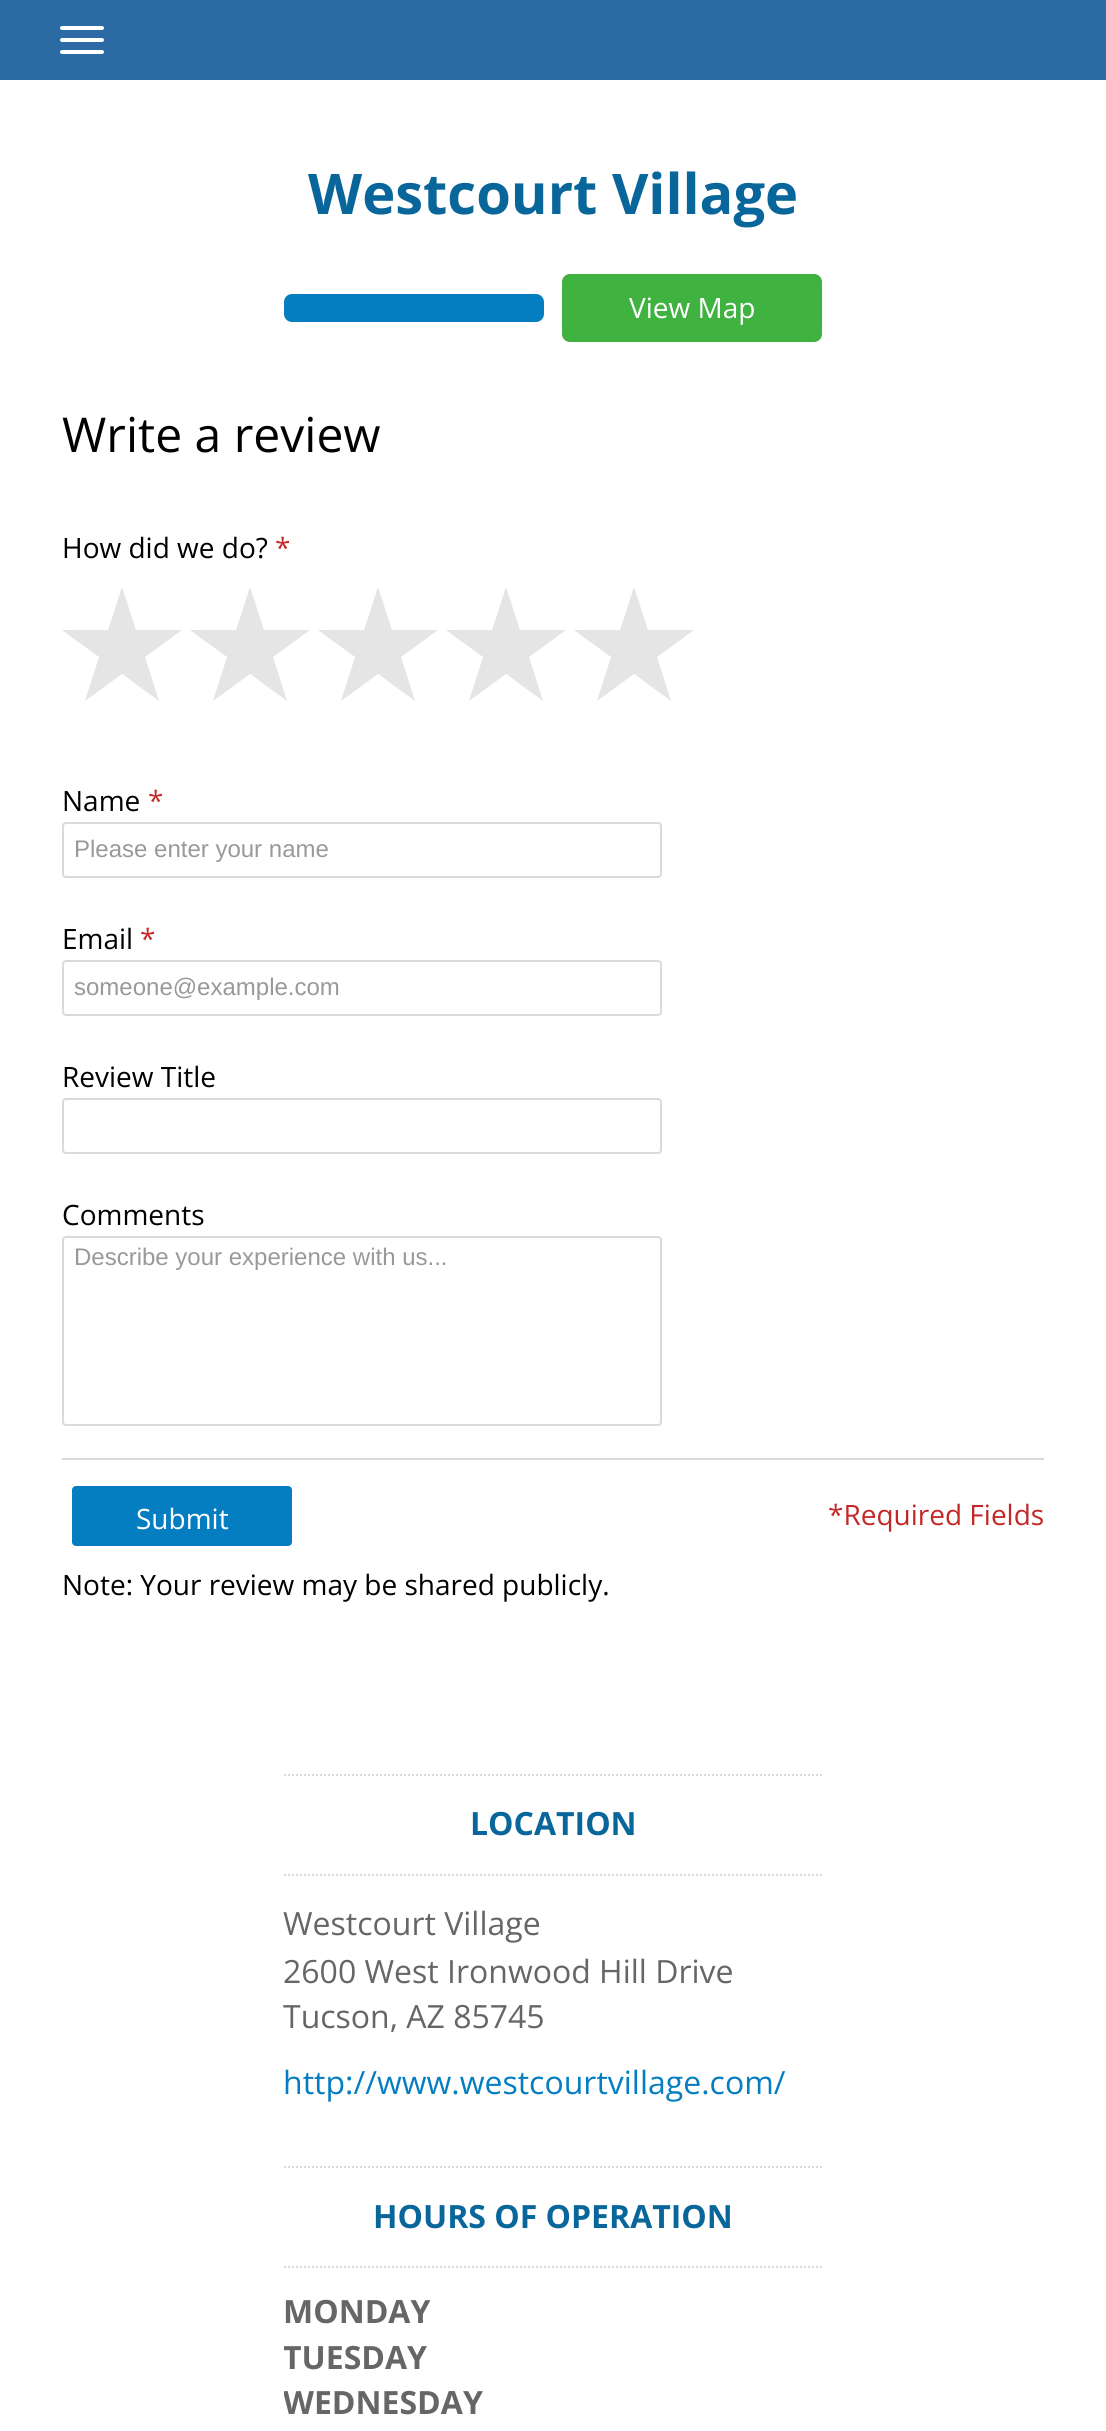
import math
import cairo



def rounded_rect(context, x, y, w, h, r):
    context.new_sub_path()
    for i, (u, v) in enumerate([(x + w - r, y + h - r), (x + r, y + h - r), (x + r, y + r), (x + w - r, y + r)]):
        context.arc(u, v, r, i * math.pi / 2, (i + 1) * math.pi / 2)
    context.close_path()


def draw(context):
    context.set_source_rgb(1, 1, 1)
    context.paint()
    context.set_source_rgb(43 / 255, 106 / 255, 163 / 255)
    context.rectangle(0, 0, 1106, 80)
    context.fill()
    context.set_source_rgb(1, 1, 1)
    rounded_rect(context, 60, 26, 44, 4, 2)
    context.fill()
    rounded_rect(context, 60, 38, 44, 4, 2)
    context.fill()
    rounded_rect(context, 60, 50, 44, 4, 2)
    context.fill()
    context.set_source_rgb(5 / 255, 126 / 255, 193 / 255)
    rounded_rect(context, 284, 294, 260, 28, 8)
    context.fill()
    context.set_source_rgb(63 / 255, 178 / 255, 63 / 255)
    rounded_rect(context, 562, 274, 260, 68, 8)
    context.fill()
    context.set_source_rgb(229 / 255, 229 / 255, 229 / 255)
    context.new_path()
    context.move_to(182, 630)
    context.line_to(136, 630)
    context.line_to(122, 587)
    context.line_to(108, 630)
    context.line_to(62, 630)
    context.line_to(99, 657)
    context.line_to(85, 701)
    context.line_to(122, 674)
    context.line_to(159, 701)
    context.line_to(145, 657)
    context.close_path()
    context.fill()
    context.new_path()
    context.move_to(310, 630)
    context.line_to(264, 630)
    context.line_to(250, 587)
    context.line_to(236, 630)
    context.line_to(190, 630)
    context.line_to(227, 657)
    context.line_to(213, 701)
    context.line_to(250, 674)
    context.line_to(287, 701)
    context.line_to(273, 657)
    context.close_path()
    context.fill()
    context.new_path()
    context.move_to(438, 630)
    context.line_to(392, 630)
    context.line_to(378, 587)
    context.line_to(364, 630)
    context.line_to(318, 630)
    context.line_to(355, 657)
    context.line_to(341, 701)
    context.line_to(378, 674)
    context.line_to(415, 701)
    context.line_to(401, 657)
    context.close_path()
    context.fill()
    context.new_path()
    context.move_to(566, 630)
    context.line_to(520, 630)
    context.line_to(506, 587)
    context.line_to(492, 630)
    context.line_to(446, 630)
    context.line_to(483, 657)
    context.line_to(469, 701)
    context.line_to(506, 674)
    context.line_to(543, 701)
    context.line_to(529, 657)
    context.close_path()
    context.fill()
    context.new_path()
    context.move_to(694, 630)
    context.line_to(648, 630)
    context.line_to(634, 587)
    context.line_to(620, 630)
    context.line_to(574, 630)
    context.line_to(611, 657)
    context.line_to(597, 701)
    context.line_to(634, 674)
    context.line_to(671, 701)
    context.line_to(657, 657)
    context.close_path()
    context.fill()
    rounded_rect(context, 63, 823, 598, 54, 3)
    context.set_source_rgb(218 / 255, 218 / 255, 218 / 255)
    context.stroke()
    rounded_rect(context, 63, 961, 598, 54, 3)
    context.stroke()
    rounded_rect(context, 63, 1099, 598, 54, 3)
    context.stroke()
    rounded_rect(context, 63, 1237, 598, 188, 3)
    context.stroke()
    context.rectangle(62, 1458, 982, 2)
    context.fill()
    context.set_source_rgb(5 / 255, 126 / 255, 193 / 255)
    rounded_rect(context, 72, 1486, 220, 60, 4)
    context.fill()
    context.new_path()
    context.move_to(284, 1775)
    context.line_to(824, 1775)
    context.set_source_rgb(218 / 255, 218 / 255, 218 / 255)
    context.set_dash([2, 2])
    context.stroke()
    context.new_path()
    context.move_to(284, 1875)
    context.line_to(824, 1875)
    context.stroke()
    context.new_path()
    context.move_to(284, 2167)
    context.line_to(824, 2167)
    context.stroke()
    context.new_path()
    context.move_to(284, 2267)
    context.line_to(824, 2267)
    context.stroke()
    context.select_font_face("Open Sans", cairo.FontSlant.NORMAL, cairo.FontWeight.BOLD)
    context.set_font_size(56)
    context.set_source_rgb(9 / 255, 102 / 255, 154 / 255)
    context.move_to(308, 214)
    context.show_text("Westcourt Village")
    context.select_font_face("Open Sans")
    context.set_font_size(28)
    context.set_source_rgb(1, 1, 1)
    context.move_to(629, 318)
    context.show_text("View Map")
    context.set_font_size(48)
    context.set_source_rgb(0, 0, 0)
    context.move_to(62, 452)
    context.show_text("Write a review")
    context.set_font_size(28)
    context.move_to(62, 558)
    context.show_text("How did we do?")
    context.set_source_rgb(196 / 255, 39 / 255, 39 / 255)
    context.move_to(275, 558)
    context.show_text("*")
    context.set_source_rgb(0, 0, 0)
    context.move_to(62, 811)
    context.show_text("Name")
    context.set_source_rgb(196 / 255, 39 / 255, 39 / 255)
    context.move_to(148, 811)
    context.show_text("*")
    context.select_font_face("Liberation Sans")
    context.set_font_size(24)
    context.set_source_rgb(153 / 255, 153 / 255, 153 / 255)
    context.move_to(74, 857)
    context.show_text("Please enter your name")
    context.select_font_face("Open Sans")
    context.set_font_size(28)
    context.set_source_rgb(0, 0, 0)
    context.move_to(62, 949)
    context.show_text("Email")
    context.set_source_rgb(196 / 255, 39 / 255, 39 / 255)
    context.move_to(140, 949)
    context.show_text("*")
    context.select_font_face("Liberation Sans")
    context.set_font_size(24)
    context.set_source_rgb(153 / 255, 153 / 255, 153 / 255)
    context.move_to(74, 995)
    context.show_text("someone@example.com")
    context.select_font_face("Open Sans")
    context.set_font_size(28)
    context.set_source_rgb(0, 0, 0)
    context.move_to(62, 1087)
    context.show_text("Review Title")
    context.move_to(62, 1225)
    context.show_text("Comments")
    context.select_font_face("Liberation Sans")
    context.set_font_size(24)
    context.set_source_rgb(153 / 255, 153 / 255, 153 / 255)
    context.move_to(74, 1265)
    context.show_text("Describe your experience with us...")
    context.select_font_face("Open Sans")
    context.set_font_size(28)
    context.set_source_rgb(1, 1, 1)
    context.move_to(136, 1529)
    context.show_text("Submit")
    context.set_source_rgb(196 / 255, 39 / 255, 39 / 255)
    context.move_to(828, 1525)
    context.show_text("*Required Fields")
    context.set_source_rgb(0, 0, 0)
    context.move_to(62, 1595)
    context.show_text("Note: Your review may be shared publicly.")
    context.select_font_face("Open Sans", cairo.FontSlant.NORMAL, cairo.FontWeight.BOLD)
    context.set_font_size(32)
    context.set_source_rgb(9 / 255, 102 / 255, 154 / 255)
    context.move_to(470, 1835)
    context.show_text("LOCATION")
    context.select_font_face("Open Sans")
    context.set_source_rgb(102 / 255, 102 / 255, 102 / 255)
    context.move_to(283, 1935)
    context.show_text("Westcourt Village")
    context.move_to(283, 1983)
    context.show_text("2600 West Ironwood Hill Drive")
    context.move_to(283, 2028)
    context.show_text("Tucson, AZ 85745")
    context.set_source_rgb(5 / 255, 126 / 255, 193 / 255)
    context.move_to(283, 2094)
    context.show_text("http://www.westcourtvillage.com/")
    context.select_font_face("Open Sans", cairo.FontSlant.NORMAL, cairo.FontWeight.BOLD)
    context.set_source_rgb(9 / 255, 102 / 255, 154 / 255)
    context.move_to(373, 2228)
    context.show_text("HOURS OF OPERATION")
    context.set_source_rgb(102 / 255, 102 / 255, 102 / 255)
    context.move_to(283, 2323)
    context.show_text("MONDAY")
    context.save()
    context.rectangle(284, 2166, 540, 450)
    context.clip()
    context.move_to(283, 2369)
    context.show_text("TUESDAY")
    context.move_to(283, 2414)
    context.show_text("WEDNESDAY")
    context.restore()


surface = cairo.ImageSurface(cairo.Format.RGB24, 1106, 2431)
context = cairo.Context(surface)
options = cairo.FontOptions()
options.set_hint_metrics(cairo.HintMetrics.OFF)
options.set_hint_style(cairo.HintStyle.NONE)
context.set_font_options(options)
context.set_miter_limit(4)
draw(context)
surface.write_to_png("out.png")
